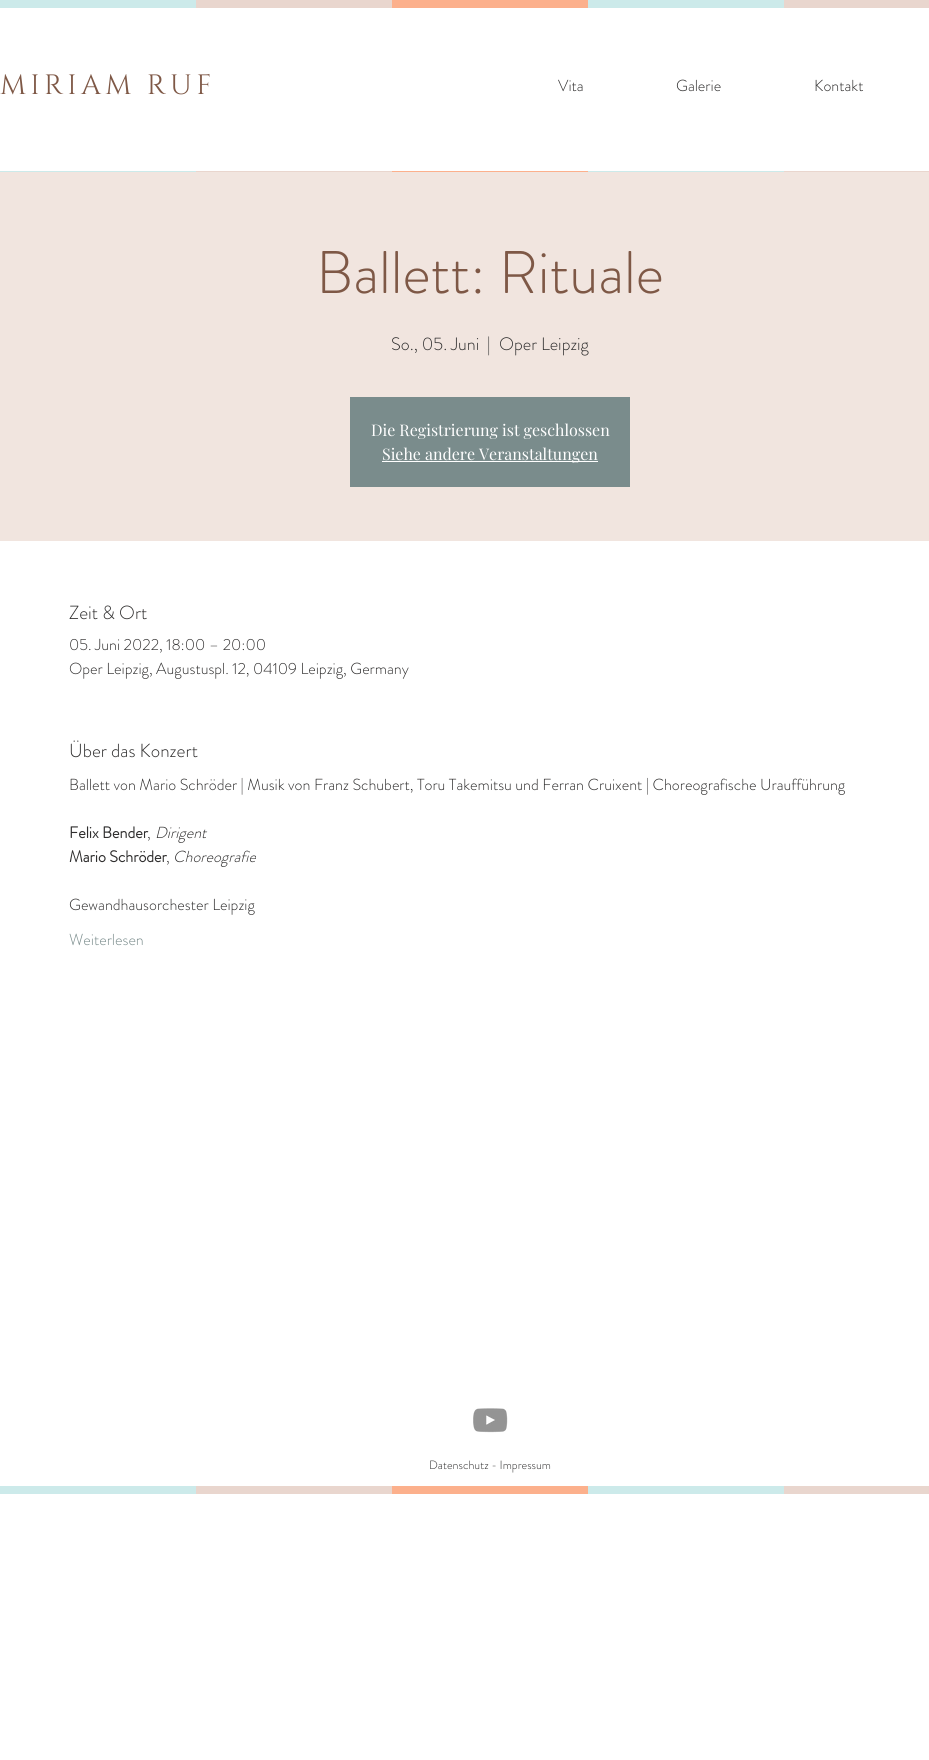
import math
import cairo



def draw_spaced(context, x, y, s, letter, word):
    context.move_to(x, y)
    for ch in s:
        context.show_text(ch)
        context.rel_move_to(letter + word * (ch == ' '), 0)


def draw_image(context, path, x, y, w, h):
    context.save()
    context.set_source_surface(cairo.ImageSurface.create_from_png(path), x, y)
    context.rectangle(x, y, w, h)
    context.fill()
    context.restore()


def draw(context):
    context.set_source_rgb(1, 1, 1)
    context.paint()
    context.set_source_rgb(204 / 255, 234 / 255, 234 / 255)
    context.rectangle(0, 0, 196, 8)
    context.fill()
    context.set_source_rgb(233 / 255, 214 / 255, 206 / 255)
    context.rectangle(196, 0, 196, 8)
    context.fill()
    context.set_source_rgb(252 / 255, 176 / 255, 140 / 255)
    context.rectangle(392, 0, 196, 8)
    context.fill()
    context.set_source_rgb(204 / 255, 234 / 255, 234 / 255)
    context.rectangle(588, 0, 196, 8)
    context.fill()
    context.set_source_rgb(233 / 255, 214 / 255, 206 / 255)
    context.rectangle(784, 0, 145, 8)
    context.fill()
    context.set_source_rgb(204 / 255, 234 / 255, 234 / 255)
    context.rectangle(0, 171, 196, 1)
    context.fill()
    context.set_source_rgb(233 / 255, 214 / 255, 206 / 255)
    context.rectangle(196, 171, 196, 1)
    context.fill()
    context.set_source_rgb(252 / 255, 176 / 255, 140 / 255)
    context.rectangle(392, 171, 196, 1)
    context.fill()
    context.set_source_rgb(204 / 255, 234 / 255, 234 / 255)
    context.rectangle(588, 171, 196, 1)
    context.fill()
    context.set_source_rgb(233 / 255, 214 / 255, 206 / 255)
    context.rectangle(784, 171, 145, 1)
    context.fill()
    context.set_source_rgb(241 / 255, 229 / 255, 223 / 255)
    context.rectangle(0, 172, 929, 369)
    context.fill()
    context.set_source_rgb(122 / 255, 140 / 255, 140 / 255)
    context.rectangle(350, 397, 280, 90)
    context.fill()
    context.set_source_rgb(1, 1, 1)
    context.rectangle(382, 461, 216, 1)
    context.fill()
    draw_image(context, "images/1.png", 473, 1408, 35, 25)
    context.set_source_rgb(204 / 255, 234 / 255, 234 / 255)
    context.rectangle(0, 1486, 196, 8)
    context.fill()
    context.set_source_rgb(233 / 255, 214 / 255, 206 / 255)
    context.rectangle(196, 1486, 196, 8)
    context.fill()
    context.set_source_rgb(252 / 255, 176 / 255, 140 / 255)
    context.rectangle(392, 1486, 196, 8)
    context.fill()
    context.set_source_rgb(204 / 255, 234 / 255, 234 / 255)
    context.rectangle(588, 1486, 196, 8)
    context.fill()
    context.set_source_rgb(233 / 255, 214 / 255, 206 / 255)
    context.rectangle(784, 1486, 145, 8)
    context.fill()
    context.select_font_face("Cinzel")
    context.set_font_size(28)
    context.set_source_rgb(126 / 255, 88 / 255, 70 / 255)
    draw_spaced(context, 0, 94, "MIRIAM RUF", 4.25, 0)
    context.select_font_face("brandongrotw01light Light")
    context.set_font_size(16)
    context.set_source_rgb(47 / 255, 46 / 255, 46 / 255)
    context.move_to(558, 91)
    context.show_text("Vita")
    context.move_to(676, 91)
    context.show_text("Galerie")
    context.move_to(814, 91)
    context.show_text("Kontakt")
    context.set_font_size(60)
    context.set_source_rgb(126 / 255, 88 / 255, 70 / 255)
    context.move_to(316, 293)
    context.show_text("Ballett: Rituale")
    context.set_font_size(18)
    context.set_source_rgb(47 / 255, 46 / 255, 46 / 255)
    context.move_to(391, 350)
    context.show_text("So., 05. Juni")
    context.move_to(487, 350)
    context.show_text("|")
    context.move_to(499, 350)
    context.show_text("Oper Leipzig")
    context.select_font_face("Playfair Display")
    context.set_font_size(16)
    context.set_source_rgb(1, 1, 1)
    context.move_to(371, 436)
    context.show_text("Die Registrierung ist geschlossen")
    context.move_to(382, 460)
    context.show_text("Siehe andere Veranstaltungen")
    context.select_font_face("brandongrotw01light Light")
    context.set_font_size(19)
    context.set_source_rgb(47 / 255, 46 / 255, 46 / 255)
    context.move_to(69, 619)
    context.show_text("Zeit & Ort")
    context.set_font_size(16)
    context.move_to(69, 650)
    context.show_text("05. Juni 2022, 18:00 – 20:00")
    context.move_to(69, 674)
    context.show_text("Oper Leipzig, Augustuspl. 12, 04109 Leipzig, Germany")
    context.set_font_size(19)
    context.move_to(69, 757)
    context.show_text("Über das Konzert")
    context.set_font_size(16)
    context.move_to(69, 790)
    context.show_text("Ballett von Mario Schröder | Musik von Franz Schubert, Toru Takemitsu und Ferran Cruixent | Choreografische Uraufführung")
    context.select_font_face("brandongrotw01light", cairo.FontSlant.NORMAL, cairo.FontWeight.BOLD)
    context.move_to(69, 838)
    context.show_text("Felix Bender")
    context.select_font_face("brandongrotw01light Light")
    context.move_to(147, 838)
    context.show_text(",")
    context.select_font_face("brandongrotw01light Light", cairo.FontSlant.ITALIC)
    context.move_to(155, 838)
    context.show_text("Dirigent")
    context.select_font_face("brandongrotw01light", cairo.FontSlant.NORMAL, cairo.FontWeight.BOLD)
    context.move_to(69, 862)
    context.show_text("Mario Schröder")
    context.select_font_face("brandongrotw01light Light")
    context.move_to(166, 862)
    context.show_text(",")
    context.select_font_face("brandongrotw01light Light", cairo.FontSlant.ITALIC)
    context.move_to(173, 862)
    context.show_text("Choreografie")
    context.select_font_face("brandongrotw01light Light")
    context.move_to(69, 910)
    context.show_text("Gewandhausorchester Leipzig")
    context.set_source_rgb(122 / 255, 140 / 255, 140 / 255)
    context.move_to(69, 945)
    context.show_text("Weiterlesen")
    context.set_font_size(12)
    context.set_source_rgb(47 / 255, 46 / 255, 46 / 255)
    context.move_to(429, 1469)
    context.show_text("Datenschutz - Impressum")


surface = cairo.ImageSurface(cairo.Format.RGB24, 929, 1760)
context = cairo.Context(surface)
options = cairo.FontOptions()
options.set_hint_metrics(cairo.HintMetrics.OFF)
options.set_hint_style(cairo.HintStyle.NONE)
context.set_font_options(options)
context.set_miter_limit(4)
draw(context)
surface.write_to_png("out.png")
